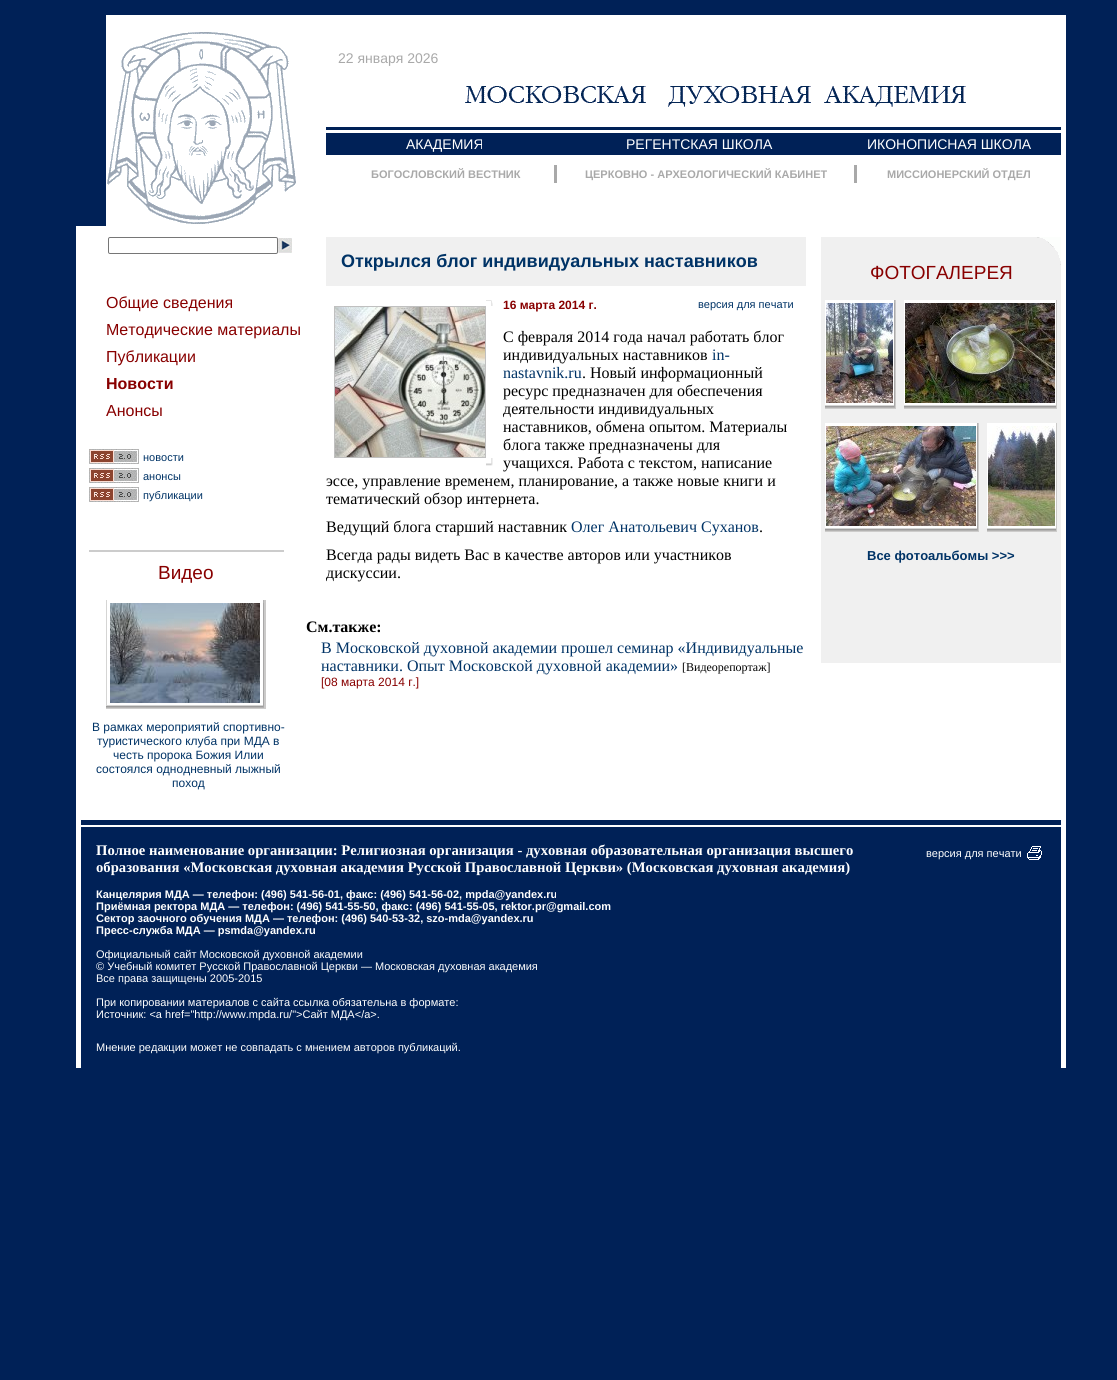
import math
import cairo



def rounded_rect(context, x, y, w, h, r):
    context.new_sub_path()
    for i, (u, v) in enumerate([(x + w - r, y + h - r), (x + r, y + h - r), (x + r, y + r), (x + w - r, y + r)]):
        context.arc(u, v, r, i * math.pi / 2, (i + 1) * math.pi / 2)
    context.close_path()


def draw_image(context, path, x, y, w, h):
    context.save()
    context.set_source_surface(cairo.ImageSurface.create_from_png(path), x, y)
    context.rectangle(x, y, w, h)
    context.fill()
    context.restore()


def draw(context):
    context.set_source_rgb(0, 33 / 255, 87 / 255)
    context.paint()
    context.set_source_rgb(1, 1, 1)
    context.rectangle(106, 15, 960, 211)
    context.fill()
    draw_image(context, "images/1.png", 107, 32, 189, 192)
    draw_image(context, "images/2.png", 465, 86, 501, 21)
    context.set_source_rgb(0, 33 / 255, 87 / 255)
    context.rectangle(326, 127, 735, 28)
    context.fill()
    context.set_source_rgb(1, 1, 1)
    context.rectangle(326, 130, 735, 3)
    context.fill()
    context.set_source_rgb(169 / 255, 169 / 255, 169 / 255)
    context.rectangle(554, 165, 3, 18)
    context.fill()
    context.rectangle(854, 165, 3, 18)
    context.fill()
    context.set_source_rgb(1, 1, 1)
    context.rectangle(76, 226, 990, 594)
    context.fill()
    rounded_rect(context, 108.5, 237.5, 169, 16, 1.5)
    context.set_source_rgb(118 / 255, 118 / 255, 118 / 255)
    context.set_line_width(1)
    context.stroke()
    draw_image(context, "images/3.png", 278, 238, 14, 15)
    draw_image(context, "images/4.png", 89, 449, 50, 15)
    draw_image(context, "images/4.png", 89, 468, 50, 15)
    draw_image(context, "images/4.png", 89, 487, 50, 15)
    context.set_source_rgb(204 / 255, 204 / 255, 204 / 255)
    context.rectangle(89, 550, 195, 2)
    context.fill()
    context.set_source_rgb(213 / 255, 213 / 255, 212 / 255)
    context.rectangle(106, 600, 1, 106)
    context.fill()
    context.set_source_rgb(180 / 255, 180 / 255, 180 / 255)
    context.rectangle(263, 600, 1, 3)
    context.fill()
    context.set_source_rgb(203 / 255, 202 / 255, 201 / 255)
    context.rectangle(264, 600, 2, 108)
    context.fill()
    draw_image(context, "images/5.png", 110, 603, 150, 100)
    context.set_source_rgb(169 / 255, 168 / 255, 168 / 255)
    context.rectangle(263, 603, 1, 104)
    context.fill()
    context.set_source_rgb(213 / 255, 213 / 255, 212 / 255)
    context.rectangle(107, 705, 156, 1)
    context.fill()
    context.set_source_rgb(156 / 255, 155 / 255, 155 / 255)
    context.rectangle(106, 706, 157, 1)
    context.fill()
    context.set_source_rgb(179 / 255, 178 / 255, 177 / 255)
    context.rectangle(106, 707, 158, 1)
    context.fill()
    context.set_source_rgb(205 / 255, 204 / 255, 203 / 255)
    context.rectangle(106, 708, 160, 1)
    context.fill()
    context.set_source_rgb(240 / 255, 240 / 255, 240 / 255)
    context.rectangle(326, 237, 480, 49)
    context.fill()
    draw_image(context, "images/6.png", 486, 300, 7, 6)
    context.rectangle(334.5, 306.5, 151, 151)
    context.set_source_rgb(192 / 255, 192 / 255, 192 / 255)
    context.stroke()
    draw_image(context, "images/7.png", 335, 307, 150, 150)
    draw_image(context, "images/8.png", 486, 458, 7, 8)
    context.set_source_rgb(240 / 255, 240 / 255, 240 / 255)
    context.rectangle(821, 237, 240, 426)
    context.fill()
    draw_image(context, "images/9.png", 1037, 237, 24, 28)
    context.set_source_rgb(1, 1, 1)
    context.rectangle(825, 300, 69, 105)
    context.fill()
    context.set_source_rgb(180 / 255, 180 / 255, 180 / 255)
    context.rectangle(894, 300, 1, 3)
    context.fill()
    context.set_source_rgb(203 / 255, 202 / 255, 201 / 255)
    context.rectangle(895, 300, 1, 108)
    context.fill()
    draw_image(context, "images/10.png", 826, 303, 67, 100)
    context.set_source_rgb(169 / 255, 168 / 255, 168 / 255)
    context.rectangle(894, 303, 1, 104)
    context.fill()
    context.set_source_rgb(213 / 255, 213 / 255, 212 / 255)
    context.rectangle(825, 405, 69, 1)
    context.fill()
    context.set_source_rgb(156 / 255, 155 / 255, 155 / 255)
    context.rectangle(825, 406, 69, 1)
    context.fill()
    context.set_source_rgb(179 / 255, 178 / 255, 177 / 255)
    context.rectangle(825, 407, 70, 1)
    context.fill()
    context.set_source_rgb(205 / 255, 204 / 255, 203 / 255)
    context.rectangle(825, 408, 71, 1)
    context.fill()
    context.set_source_rgb(1, 1, 1)
    context.rectangle(904, 300, 152, 105)
    context.fill()
    draw_image(context, "images/11.png", 905, 303, 150, 100)
    context.set_source_rgb(203 / 255, 202 / 255, 201 / 255)
    context.rectangle(1056, 300, 1, 108)
    context.fill()
    context.set_source_rgb(213 / 255, 213 / 255, 212 / 255)
    context.rectangle(904, 405, 152, 1)
    context.fill()
    context.set_source_rgb(156 / 255, 155 / 255, 155 / 255)
    context.rectangle(904, 406, 152, 1)
    context.fill()
    context.set_source_rgb(179 / 255, 178 / 255, 177 / 255)
    context.rectangle(904, 407, 152, 1)
    context.fill()
    context.set_source_rgb(205 / 255, 204 / 255, 203 / 255)
    context.rectangle(904, 408, 153, 1)
    context.fill()
    context.set_source_rgb(1, 1, 1)
    context.rectangle(825, 423, 152, 105)
    context.fill()
    context.set_source_rgb(180 / 255, 180 / 255, 180 / 255)
    context.rectangle(977, 423, 1, 3)
    context.fill()
    context.set_source_rgb(203 / 255, 202 / 255, 201 / 255)
    context.rectangle(978, 423, 1, 108)
    context.fill()
    draw_image(context, "images/12.png", 826, 426, 150, 100)
    context.set_source_rgb(169 / 255, 168 / 255, 168 / 255)
    context.rectangle(977, 426, 1, 104)
    context.fill()
    context.set_source_rgb(213 / 255, 213 / 255, 212 / 255)
    context.rectangle(825, 528, 152, 1)
    context.fill()
    context.set_source_rgb(156 / 255, 155 / 255, 155 / 255)
    context.rectangle(825, 529, 152, 1)
    context.fill()
    context.set_source_rgb(179 / 255, 178 / 255, 177 / 255)
    context.rectangle(825, 530, 153, 1)
    context.fill()
    context.set_source_rgb(205 / 255, 204 / 255, 203 / 255)
    context.rectangle(825, 531, 154, 1)
    context.fill()
    context.set_source_rgb(1, 1, 1)
    context.rectangle(987, 423, 69, 105)
    context.fill()
    draw_image(context, "images/13.png", 988, 426, 67, 100)
    context.set_source_rgb(203 / 255, 202 / 255, 201 / 255)
    context.rectangle(1056, 423, 1, 108)
    context.fill()
    context.set_source_rgb(213 / 255, 213 / 255, 212 / 255)
    context.rectangle(987, 528, 69, 1)
    context.fill()
    context.set_source_rgb(156 / 255, 155 / 255, 155 / 255)
    context.rectangle(987, 529, 69, 1)
    context.fill()
    context.set_source_rgb(179 / 255, 178 / 255, 177 / 255)
    context.rectangle(987, 530, 69, 1)
    context.fill()
    context.set_source_rgb(205 / 255, 204 / 255, 203 / 255)
    context.rectangle(987, 531, 70, 1)
    context.fill()
    context.set_source_rgb(1, 1, 1)
    context.rectangle(76, 820, 5, 248)
    context.fill()
    context.rectangle(81, 825, 980, 2)
    context.fill()
    draw_image(context, "images/14.png", 1027, 846, 15, 14)
    context.rectangle(1061, 820, 5, 248)
    context.fill()
    context.select_font_face("Liberation Sans")
    context.set_font_size(14)
    context.set_source_rgb(169 / 255, 169 / 255, 169 / 255)
    context.move_to(338, 63)
    context.show_text("22 января 2026")
    context.set_source_rgb(1, 1, 1)
    context.move_to(406, 149)
    context.show_text("АКАДЕМИЯ")
    context.move_to(626, 149)
    context.show_text("РЕГЕНТСКАЯ ШКОЛА")
    context.move_to(867, 149)
    context.show_text("ИКОНОПИСНАЯ ШКОЛА")
    context.select_font_face("Liberation Sans", cairo.FontSlant.NORMAL, cairo.FontWeight.BOLD)
    context.set_font_size(11)
    context.set_source_rgb(169 / 255, 169 / 255, 169 / 255)
    context.move_to(371, 178)
    context.show_text("БОГОСЛОВСКИЙ ВЕСТНИК")
    context.move_to(585, 178)
    context.show_text("ЦЕРКОВНО - АРХЕОЛОГИЧЕСКИЙ КАБИНЕТ")
    context.move_to(887, 178)
    context.show_text("МИССИОНЕРСКИЙ ОТДЕЛ")
    context.select_font_face("Liberation Sans")
    context.set_font_size(16)
    context.set_source_rgb(136 / 255, 0, 0)
    context.move_to(106, 308)
    context.show_text("Общие сведения")
    context.move_to(106, 335)
    context.show_text("Методические материалы")
    context.move_to(106, 362)
    context.show_text("Публикации")
    context.select_font_face("Liberation Sans", cairo.FontSlant.NORMAL, cairo.FontWeight.BOLD)
    context.move_to(106, 389)
    context.show_text("Новости")
    context.select_font_face("Liberation Sans")
    context.move_to(106, 416)
    context.show_text("Анонсы")
    context.set_font_size(11)
    context.set_source_rgb(0, 51 / 255, 102 / 255)
    context.move_to(143, 461)
    context.show_text("новости")
    context.move_to(143, 480)
    context.show_text("анонсы")
    context.move_to(143, 499)
    context.show_text("публикации")
    context.set_font_size(19)
    context.set_source_rgb(136 / 255, 0, 0)
    context.move_to(158, 579)
    context.show_text("Видео")
    context.set_font_size(12)
    context.set_source_rgb(0, 51 / 255, 102 / 255)
    context.move_to(92, 731)
    context.show_text("В рамках мероприятий спортивно-")
    context.move_to(97, 745)
    context.show_text("туристического клуба при МДА в")
    context.move_to(113, 759)
    context.show_text("честь пророка Божия Илии")
    context.move_to(96, 773)
    context.show_text("состоялся однодневный лыжный")
    context.move_to(172, 787)
    context.show_text("поход")
    context.select_font_face("Liberation Sans", cairo.FontSlant.NORMAL, cairo.FontWeight.BOLD)
    context.set_font_size(18)
    context.move_to(341, 267)
    context.show_text("Открылся блог индивидуальных наставников")
    context.set_font_size(12)
    context.set_source_rgb(136 / 255, 0, 0)
    context.move_to(503, 309)
    context.show_text("16 марта 2014 г.")
    context.select_font_face("Liberation Sans")
    context.set_font_size(11)
    context.set_source_rgb(0, 51 / 255, 102 / 255)
    context.move_to(698, 308)
    context.show_text("версия для печати")
    context.select_font_face("Liberation Serif")
    context.set_font_size(16)
    context.set_source_rgb(0, 0, 0)
    context.move_to(503, 342)
    context.show_text("C февраля 2014 года начал работать блог")
    context.move_to(503, 360)
    context.show_text("индивидуальных наставников")
    context.set_source_rgb(0, 51 / 255, 102 / 255)
    context.move_to(712, 360)
    context.show_text("in-")
    context.move_to(503, 378)
    context.show_text("nastavnik.ru")
    context.set_source_rgb(0, 0, 0)
    context.move_to(582, 378)
    context.show_text(". Новый информационный")
    context.move_to(503, 396)
    context.show_text("ресурс предназначен для обеспечения")
    context.move_to(503, 414)
    context.show_text("деятельности индивидуальных")
    context.move_to(503, 432)
    context.show_text("наставников, обмена опытом. Материалы")
    context.move_to(503, 450)
    context.show_text("блога также предназначены для")
    context.move_to(503, 468)
    context.show_text("учащихся. Работа с текстом, написание")
    context.move_to(326, 486)
    context.show_text("эссе, управление временем, планирование, а также новые книги и")
    context.move_to(326, 504)
    context.show_text("тематический обзор интернета.")
    context.move_to(326, 532)
    context.show_text("Ведущий блога старший наставник")
    context.set_source_rgb(0, 51 / 255, 102 / 255)
    context.move_to(571, 532)
    context.show_text("Олег Анатольевич Суханов")
    context.set_source_rgb(0, 0, 0)
    context.move_to(759, 532)
    context.show_text(".")
    context.move_to(326, 560)
    context.show_text("Всегда рады видеть Вас в качестве авторов или участников")
    context.move_to(326, 578)
    context.show_text("дискуссии.")
    context.select_font_face("Liberation Serif", cairo.FontSlant.NORMAL, cairo.FontWeight.BOLD)
    context.move_to(306, 632)
    context.show_text("См.также:")
    context.select_font_face("Liberation Serif")
    context.set_source_rgb(0, 51 / 255, 102 / 255)
    context.move_to(321, 653)
    context.show_text("В Московской духовной академии прошел семинар «Индивидуальные")
    context.move_to(321, 671)
    context.show_text("наставники. Опыт Московской духовной академии»")
    context.set_font_size(12)
    context.set_source_rgb(0, 0, 0)
    context.move_to(682, 671)
    context.show_text("[Видеорепортаж]")
    context.select_font_face("Liberation Sans")
    context.set_source_rgb(136 / 255, 0, 0)
    context.move_to(321, 686)
    context.show_text("[08 марта 2014 г.]")
    context.set_font_size(19)
    context.move_to(870, 279)
    context.show_text("ФОТОГАЛЕРЕЯ")
    context.select_font_face("Liberation Sans", cairo.FontSlant.NORMAL, cairo.FontWeight.BOLD)
    context.set_font_size(13)
    context.set_source_rgb(0, 51 / 255, 102 / 255)
    context.move_to(867, 560)
    context.show_text("Все фотоальбомы >>>")
    context.select_font_face("Liberation Serif", cairo.FontSlant.NORMAL, cairo.FontWeight.BOLD)
    context.set_font_size(14.67)
    context.set_source_rgb(1, 1, 1)
    context.move_to(96, 855)
    context.show_text("Полное наименование организации: Религиозная организация - духовная образовательная организация высшего")
    context.select_font_face("Liberation Sans")
    context.set_font_size(11)
    context.move_to(926, 857)
    context.show_text("версия для печати")
    context.select_font_face("Liberation Serif", cairo.FontSlant.NORMAL, cairo.FontWeight.BOLD)
    context.set_font_size(14.67)
    context.move_to(96, 872)
    context.show_text("образования «Московская духовная академия Русской Православной Церкви» (Московская духовная академия)")
    context.select_font_face("Liberation Sans", cairo.FontSlant.NORMAL, cairo.FontWeight.BOLD)
    context.set_font_size(11)
    context.move_to(96, 898)
    context.show_text("Канцелярия МДА — телефон: (496) 541-56-01, факс: (496) 541-56-02, mpda@yandex.ru")
    context.move_to(96, 910)
    context.show_text("Приёмная ректора МДА — телефон: (496) 541-55-50, факс: (496) 541-55-05, rektor.pr@gmail.com")
    context.move_to(96, 922)
    context.show_text("Сектор заочного обучения МДА — телефон: (496) 540-53-32, szo-mda@yandex.ru")
    context.move_to(96, 934)
    context.show_text("Пресс-служба МДА — psmda@yandex.ru")
    context.select_font_face("Liberation Sans")
    context.move_to(96, 958)
    context.show_text("Официальный сайт Московской духовной академии")
    context.move_to(96, 970)
    context.show_text("© Учебный комитет Русской Православной Церкви — Московская духовная академия")
    context.move_to(96, 982)
    context.show_text("Все права защищены 2005-2015")
    context.move_to(96, 1006)
    context.show_text("При копировании материалов с сайта ссылка обязательна в формате:")
    context.move_to(96, 1018)
    context.show_text("Источник: <a href=\"http://www.mpda.ru/\">Сайт МДА</a>.")
    context.move_to(96, 1051)
    context.show_text("Мнение редакции может не совпадать с мнением авторов публикаций.")


surface = cairo.ImageSurface(cairo.Format.RGB24, 1117, 1380)
context = cairo.Context(surface)
options = cairo.FontOptions()
options.set_hint_metrics(cairo.HintMetrics.OFF)
options.set_hint_style(cairo.HintStyle.NONE)
context.set_font_options(options)
context.set_miter_limit(4)
draw(context)
surface.write_to_png("out.png")
